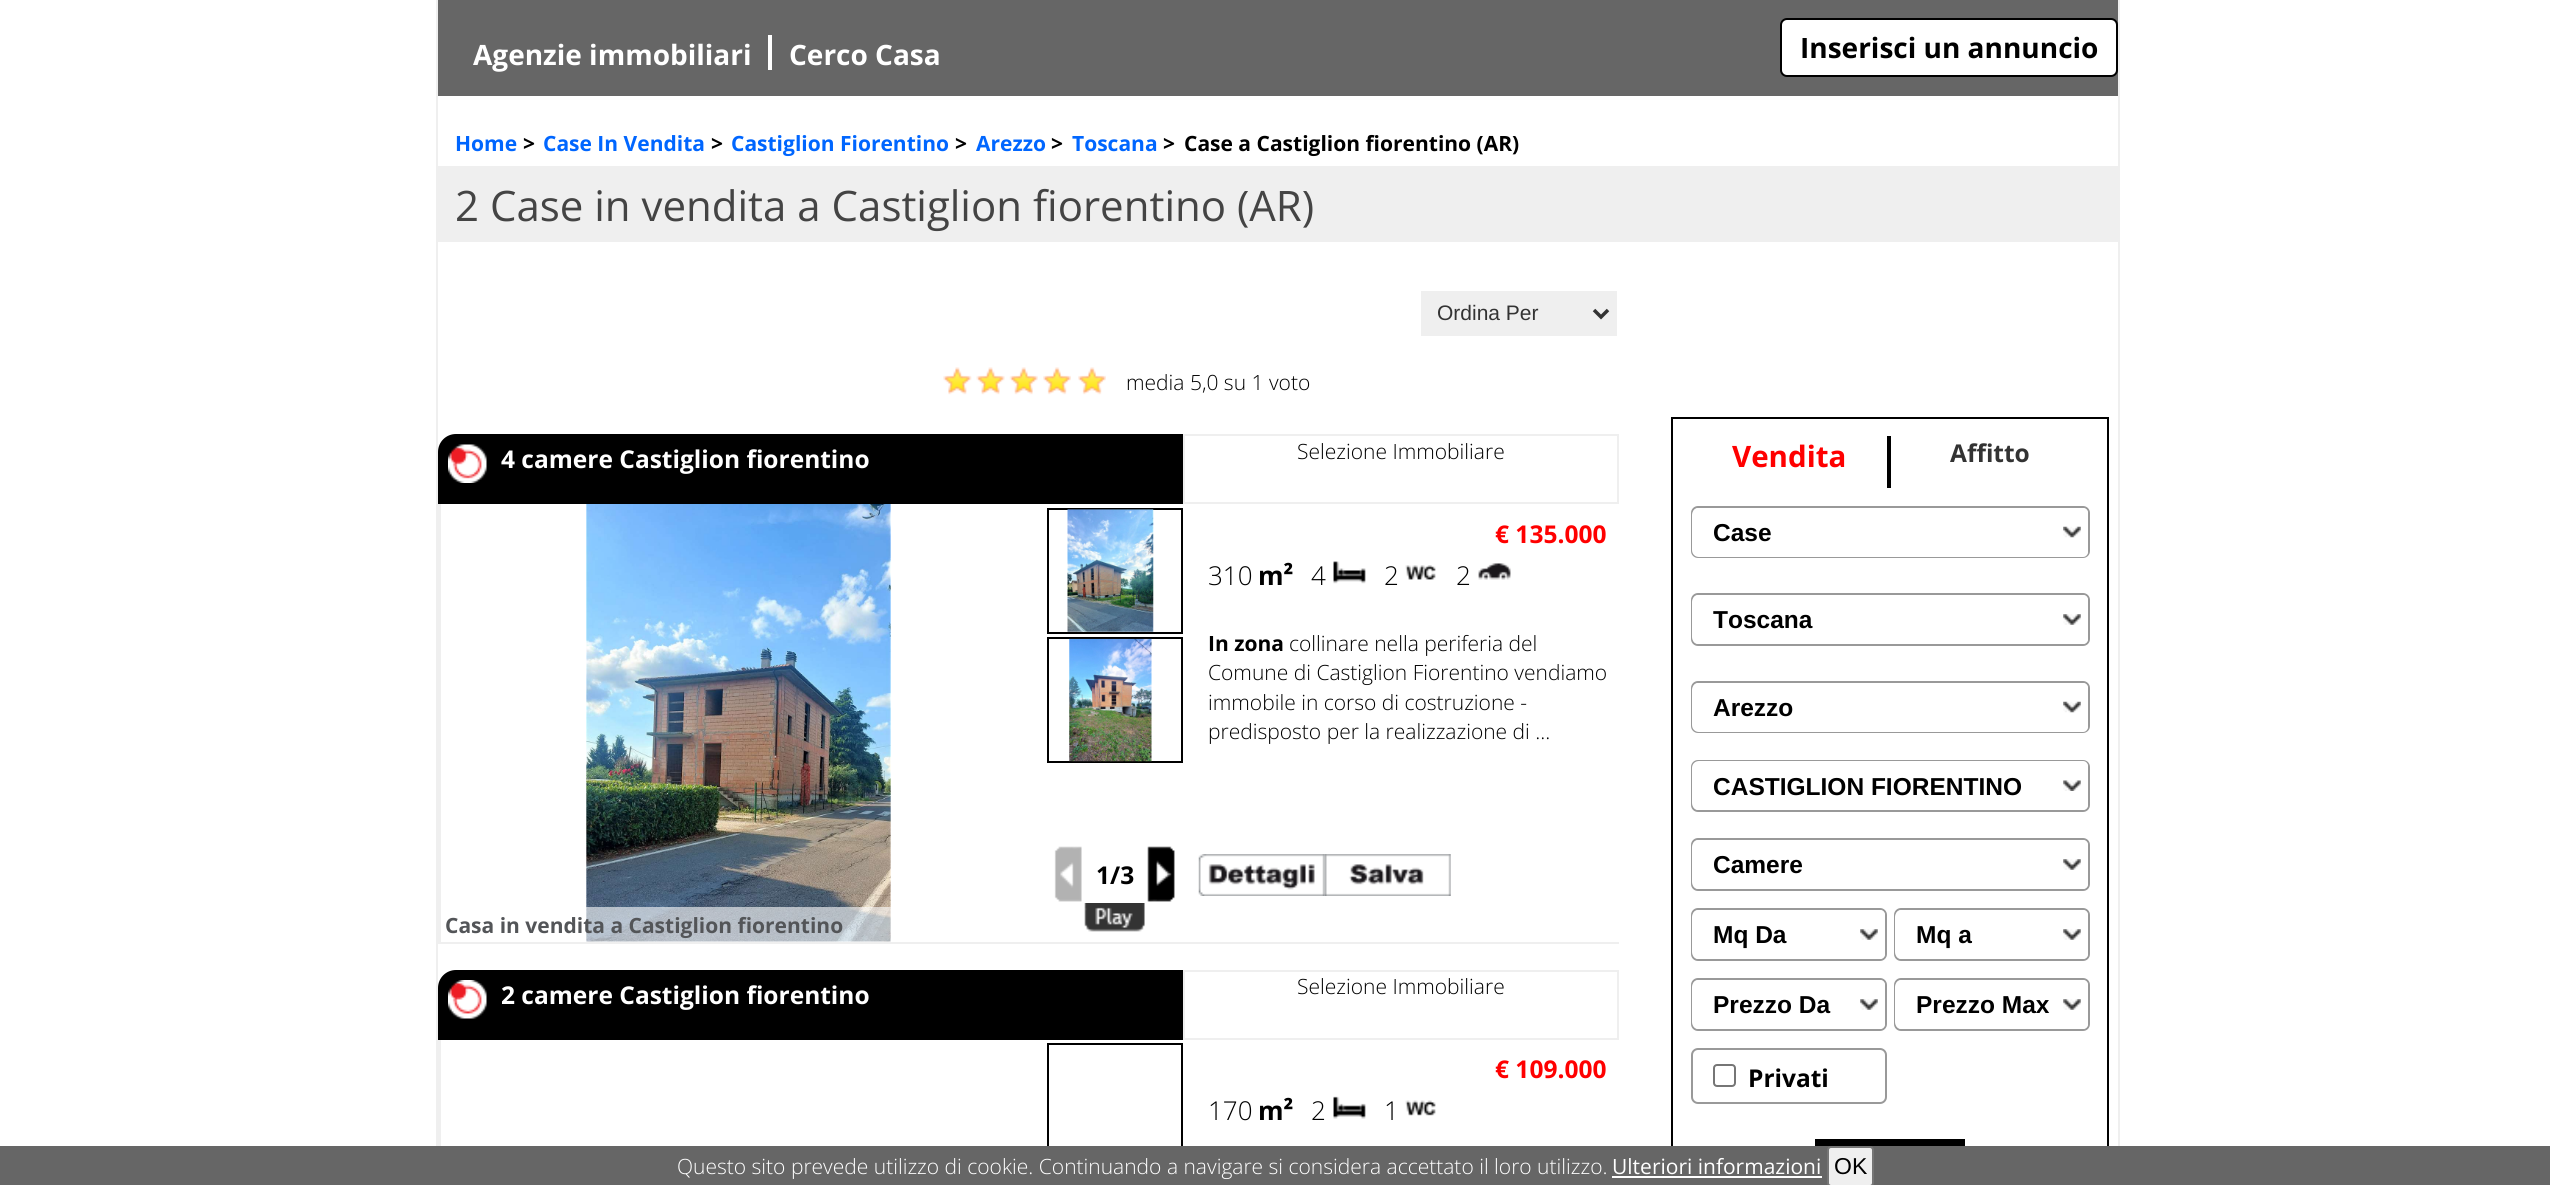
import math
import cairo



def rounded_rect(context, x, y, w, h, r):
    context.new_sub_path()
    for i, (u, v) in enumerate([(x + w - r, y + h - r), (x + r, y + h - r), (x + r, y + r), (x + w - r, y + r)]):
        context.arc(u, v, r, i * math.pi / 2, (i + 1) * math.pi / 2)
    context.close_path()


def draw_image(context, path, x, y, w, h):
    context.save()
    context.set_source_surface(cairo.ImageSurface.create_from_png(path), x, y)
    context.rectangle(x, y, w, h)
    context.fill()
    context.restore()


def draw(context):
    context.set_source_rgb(1, 1, 1)
    context.paint()
    context.set_source_rgb(239 / 255, 239 / 255, 239 / 255)
    context.rectangle(2118, 0, 2, 1146)
    context.fill()
    context.rectangle(436, 0, 2, 1146)
    context.fill()
    context.set_source_rgb(102 / 255, 102 / 255, 102 / 255)
    context.rectangle(438, 0, 1680, 96)
    context.fill()
    context.set_source_rgb(1, 1, 1)
    context.rectangle(768, 35, 4, 35)
    context.fill()
    rounded_rect(context, 1781, 19, 336, 57, 6)
    context.fill_preserve()
    context.set_source_rgb(0, 0, 0)
    context.stroke()
    context.set_source_rgb(239 / 255, 239 / 255, 239 / 255)
    context.rectangle(438, 166, 1680, 76)
    context.fill()
    context.rectangle(1422, 292, 194, 43)
    context.stroke()
    context.rectangle(1423, 293, 192, 41)
    context.fill()
    context.new_path()
    context.move_to(1594, 310)
    context.line_to(1601, 317)
    context.line_to(1608, 310)
    context.set_source_rgb(51 / 255, 51 / 255, 51 / 255)
    context.set_line_width(3.5)
    context.stroke()
    draw_image(context, "images/1.png", 943, 367, 29, 28)
    draw_image(context, "images/2.png", 976, 367, 29, 28)
    draw_image(context, "images/3.png", 1009, 367, 29, 28)
    draw_image(context, "images/4.png", 1043, 367, 28, 28)
    draw_image(context, "images/5.png", 1078, 367, 28, 28)
    context.set_source_rgb(239 / 255, 239 / 255, 239 / 255)
    context.rectangle(438, 942, 1181, 2)
    context.fill()
    context.set_source_rgb(0, 0, 0)
    context.new_path()
    context.move_to(456, 434)
    context.line_to(1183, 434)
    context.line_to(1183, 504)
    context.line_to(438, 504)
    context.line_to(438, 452)
    context.curve_to(438, 442, 446, 434, 456, 434)
    context.close_path()
    context.fill()
    draw_image(context, "images/6.png", 448, 444, 39, 39)
    context.rectangle(1184, 435, 434, 68)
    context.set_source_rgb(239 / 255, 239 / 255, 239 / 255)
    context.set_line_width(2)
    context.stroke()
    context.rectangle(438, 504, 3, 438)
    context.fill()
    draw_image(context, "images/7.png", 586, 504, 305, 438)
    context.rectangle(1048, 509, 134, 124)
    context.set_source_rgb(0, 0, 0)
    context.stroke()
    draw_image(context, "images/8.png", 1067, 509, 87, 123)
    context.rectangle(1048, 638, 134, 124)
    context.stroke()
    draw_image(context, "images/9.png", 1069, 638, 83, 124)
    draw_image(context, "images/10.png", 1333, 561, 33, 23)
    draw_image(context, "images/11.png", 1405, 565, 31, 15)
    draw_image(context, "images/12.png", 1478, 563, 33, 17)
    draw_image(context, "images/13.png", 1054, 846, 28, 56)
    draw_image(context, "images/14.png", 1147, 846, 28, 56)
    draw_image(context, "images/15.png", 1084, 903, 61, 29)
    draw_image(context, "images/16.png", 1198, 854, 127, 42)
    draw_image(context, "images/17.png", 1324, 854, 127, 42)
    context.set_source_rgba(1, 1, 1, 0.6)
    context.rectangle(586, 907, 305, 35)
    context.fill()
    context.set_source_rgb(0, 0, 0)
    context.new_path()
    context.move_to(456, 970)
    context.line_to(1183, 970)
    context.line_to(1183, 1040)
    context.line_to(438, 1040)
    context.line_to(438, 988)
    context.curve_to(438, 978, 446, 970, 456, 970)
    context.close_path()
    context.fill()
    draw_image(context, "images/18.png", 448, 980, 39, 39)
    context.rectangle(1184, 971, 434, 68)
    context.set_source_rgb(239 / 255, 239 / 255, 239 / 255)
    context.stroke()
    context.rectangle(438, 1040, 3, 106)
    context.fill()
    context.rectangle(1048, 1044, 134, 124)
    context.set_source_rgb(0, 0, 0)
    context.stroke()
    draw_image(context, "images/19.png", 1333, 1096, 33, 23)
    draw_image(context, "images/20.png", 1405, 1100, 31, 16)
    context.rectangle(1672, 418, 436, 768)
    context.stroke()
    context.rectangle(1887, 436, 4, 52)
    context.fill()
    rounded_rect(context, 1692, 507, 397, 50, 6)
    context.set_source_rgb(153 / 255, 153 / 255, 153 / 255)
    context.stroke()
    context.save()
    rounded_rect(context, 1692, 508, 396, 49, 5)
    context.clip()
    context.set_source_rgb(1, 1, 1)
    context.new_path()
    context.move_to(1699, 508)
    context.line_to(2083, 508)
    context.curve_to(2086, 508, 2088, 510, 2088, 513)
    context.line_to(2088, 552)
    context.curve_to(2088, 555, 2086, 557, 2083, 557)
    context.line_to(1699, 557)
    context.curve_to(1695, 557, 1692, 554, 1692, 550)
    context.line_to(1692, 515)
    context.curve_to(1692, 511, 1695, 508, 1699, 508)
    context.close_path()
    context.fill()
    context.restore()
    draw_image(context, "images/21.png", 2063, 526, 18, 12)
    rounded_rect(context, 1692, 594, 397, 51, 6)
    context.stroke()
    context.save()
    rounded_rect(context, 1692, 595, 396, 49, 5)
    context.clip()
    context.set_source_rgb(1, 1, 1)
    context.new_path()
    context.move_to(1699, 595)
    context.line_to(2083, 595)
    context.curve_to(2086, 595, 2088, 597, 2088, 600)
    context.line_to(2088, 639)
    context.curve_to(2088, 642, 2086, 644, 2083, 644)
    context.line_to(1699, 644)
    context.curve_to(1695, 644, 1692, 641, 1692, 637)
    context.line_to(1692, 602)
    context.curve_to(1692, 598, 1695, 595, 1699, 595)
    context.close_path()
    context.fill()
    context.restore()
    draw_image(context, "images/22.png", 2063, 614, 18, 11)
    rounded_rect(context, 1692, 682, 397, 50, 6)
    context.stroke()
    context.save()
    rounded_rect(context, 1692, 683, 396, 49, 5)
    context.clip()
    context.set_source_rgb(1, 1, 1)
    context.new_path()
    context.move_to(1699, 683)
    context.line_to(2083, 683)
    context.curve_to(2086, 683, 2088, 685, 2088, 688)
    context.line_to(2088, 727)
    context.curve_to(2088, 730, 2086, 732, 2083, 732)
    context.line_to(1699, 732)
    context.curve_to(1695, 732, 1692, 729, 1692, 725)
    context.line_to(1692, 690)
    context.curve_to(1692, 686, 1695, 683, 1699, 683)
    context.close_path()
    context.fill()
    context.restore()
    draw_image(context, "images/21.png", 2063, 701, 18, 12)
    rounded_rect(context, 1692, 761, 397, 50, 6)
    context.stroke()
    context.save()
    rounded_rect(context, 1692, 761, 396, 49, 5)
    context.clip()
    context.set_source_rgb(1, 1, 1)
    context.new_path()
    context.move_to(1699, 761)
    context.line_to(2083, 761)
    context.curve_to(2086, 761, 2088, 763, 2088, 766)
    context.line_to(2088, 805)
    context.curve_to(2088, 808, 2086, 810, 2083, 810)
    context.line_to(1699, 810)
    context.curve_to(1695, 810, 1692, 807, 1692, 803)
    context.line_to(1692, 768)
    context.curve_to(1692, 764, 1695, 761, 1699, 761)
    context.close_path()
    context.fill()
    context.restore()
    draw_image(context, "images/23.png", 2063, 780, 18, 11)
    rounded_rect(context, 1692, 839, 397, 51, 6)
    context.stroke()
    context.save()
    rounded_rect(context, 1692, 840, 396, 49, 5)
    context.clip()
    context.set_source_rgb(1, 1, 1)
    context.new_path()
    context.move_to(1699, 840)
    context.line_to(2083, 840)
    context.curve_to(2086, 840, 2088, 842, 2088, 845)
    context.line_to(2088, 884)
    context.curve_to(2088, 887, 2086, 889, 2083, 889)
    context.line_to(1699, 889)
    context.curve_to(1695, 889, 1692, 886, 1692, 882)
    context.line_to(1692, 847)
    context.curve_to(1692, 843, 1695, 840, 1699, 840)
    context.close_path()
    context.fill()
    context.restore()
    draw_image(context, "images/22.png", 2063, 859, 18, 11)
    rounded_rect(context, 1692, 909, 194, 51, 6)
    context.stroke()
    context.save()
    rounded_rect(context, 1692, 910, 193, 49, 5)
    context.clip()
    context.set_source_rgb(1, 1, 1)
    context.new_path()
    context.move_to(1699, 910)
    context.line_to(1880, 910)
    context.curve_to(1883, 910, 1885, 912, 1885, 915)
    context.line_to(1885, 954)
    context.curve_to(1885, 957, 1883, 959, 1880, 959)
    context.line_to(1699, 959)
    context.curve_to(1695, 959, 1692, 956, 1692, 952)
    context.line_to(1692, 917)
    context.curve_to(1692, 913, 1695, 910, 1699, 910)
    context.close_path()
    context.fill()
    context.restore()
    draw_image(context, "images/24.png", 1860, 929, 18, 11)
    rounded_rect(context, 1895, 909, 194, 51, 6)
    context.stroke()
    context.save()
    rounded_rect(context, 1895, 910, 193, 49, 5)
    context.clip()
    context.set_source_rgb(1, 1, 1)
    context.new_path()
    context.move_to(1902, 910)
    context.line_to(2083, 910)
    context.curve_to(2086, 910, 2088, 912, 2088, 915)
    context.line_to(2088, 954)
    context.curve_to(2088, 957, 2086, 959, 2083, 959)
    context.line_to(1902, 959)
    context.curve_to(1898, 959, 1895, 956, 1895, 952)
    context.line_to(1895, 917)
    context.curve_to(1895, 913, 1898, 910, 1902, 910)
    context.close_path()
    context.fill()
    context.restore()
    draw_image(context, "images/22.png", 2063, 929, 18, 11)
    rounded_rect(context, 1692, 979, 194, 51, 6)
    context.stroke()
    context.save()
    rounded_rect(context, 1692, 980, 193, 49, 5)
    context.clip()
    context.set_source_rgb(1, 1, 1)
    context.new_path()
    context.move_to(1699, 980)
    context.line_to(1880, 980)
    context.curve_to(1883, 980, 1885, 982, 1885, 985)
    context.line_to(1885, 1024)
    context.curve_to(1885, 1027, 1883, 1029, 1880, 1029)
    context.line_to(1699, 1029)
    context.curve_to(1695, 1029, 1692, 1026, 1692, 1022)
    context.line_to(1692, 987)
    context.curve_to(1692, 983, 1695, 980, 1699, 980)
    context.close_path()
    context.fill()
    context.restore()
    draw_image(context, "images/24.png", 1860, 999, 18, 11)
    rounded_rect(context, 1895, 979, 194, 51, 6)
    context.stroke()
    context.save()
    rounded_rect(context, 1895, 980, 193, 49, 5)
    context.clip()
    context.set_source_rgb(1, 1, 1)
    context.new_path()
    context.move_to(1902, 980)
    context.line_to(2083, 980)
    context.curve_to(2086, 980, 2088, 982, 2088, 985)
    context.line_to(2088, 1024)
    context.curve_to(2088, 1027, 2086, 1029, 2083, 1029)
    context.line_to(1902, 1029)
    context.curve_to(1898, 1029, 1895, 1026, 1895, 1022)
    context.line_to(1895, 987)
    context.curve_to(1895, 983, 1898, 980, 1902, 980)
    context.close_path()
    context.fill()
    context.restore()
    draw_image(context, "images/22.png", 2063, 999, 18, 11)
    rounded_rect(context, 1692, 1049, 194, 54, 6)
    context.stroke()
    rounded_rect(context, 1714, 1065, 21, 21, 3)
    context.set_source_rgb(118 / 255, 118 / 255, 118 / 255)
    context.stroke()
    context.set_source_rgb(0, 0, 0)
    context.rectangle(1815, 1139, 150, 7)
    context.fill()
    context.set_source_rgb(102 / 255, 102 / 255, 102 / 255)
    context.rectangle(0, 1146, 2550, 39)
    context.fill()
    context.set_source_rgb(1, 1, 1)
    context.rectangle(1612, 1176, 210, 2)
    context.fill()
    context.set_source_rgb(239 / 255, 239 / 255, 239 / 255)
    rounded_rect(context, 1828, 1147, 45, 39, 3)
    context.fill_preserve()
    context.set_source_rgb(118 / 255, 118 / 255, 118 / 255)
    context.stroke()
    context.select_font_face("Open Sans", cairo.FontSlant.NORMAL, cairo.FontWeight.BOLD)
    context.set_font_size(28)
    context.set_source_rgb(1, 1, 1)
    context.move_to(473, 65)
    context.show_text("Agenzie immobiliari")
    context.move_to(789, 65)
    context.show_text("Cerco Casa")
    context.set_source_rgb(0, 0, 0)
    context.move_to(1800, 58)
    context.show_text("Inserisci un annuncio")
    context.set_font_size(21)
    context.set_source_rgb(0, 102 / 255, 1)
    context.move_to(455, 151)
    context.show_text("Home")
    context.set_source_rgb(0, 0, 0)
    context.move_to(523, 151)
    context.show_text(">")
    context.set_source_rgb(0, 102 / 255, 1)
    context.move_to(543, 151)
    context.show_text("Case In Vendita")
    context.set_source_rgb(0, 0, 0)
    context.move_to(711, 151)
    context.show_text(">")
    context.set_source_rgb(0, 102 / 255, 1)
    context.move_to(731, 151)
    context.show_text("Castiglion Fiorentino")
    context.set_source_rgb(0, 0, 0)
    context.move_to(955, 151)
    context.show_text(">")
    context.set_source_rgb(0, 102 / 255, 1)
    context.move_to(976, 151)
    context.show_text("Arezzo")
    context.set_source_rgb(0, 0, 0)
    context.move_to(1051, 151)
    context.show_text(">")
    context.set_source_rgb(0, 102 / 255, 1)
    context.move_to(1072, 151)
    context.show_text("Toscana")
    context.set_source_rgb(0, 0, 0)
    context.move_to(1163, 151)
    context.show_text(">")
    context.move_to(1184, 151)
    context.show_text("Case a Castiglion fiorentino (AR)")
    context.select_font_face("Open Sans")
    context.set_font_size(42)
    context.set_source_rgb(68 / 255, 68 / 255, 68 / 255)
    context.move_to(455, 221)
    context.show_text("2 Case in vendita a Castiglion fiorentino (AR)")
    context.select_font_face("Liberation Sans")
    context.set_font_size(21)
    context.set_source_rgb(51 / 255, 51 / 255, 51 / 255)
    context.move_to(1437, 320)
    context.show_text("Ordina Per")
    context.select_font_face("Open Sans Light")
    context.set_source_rgb(0, 0, 0)
    context.move_to(1126, 390)
    context.show_text("media 5,0 su 1 voto")
    context.select_font_face("Open Sans", cairo.FontSlant.NORMAL, cairo.FontWeight.BOLD)
    context.set_font_size(24.5)
    context.set_source_rgb(1, 1, 1)
    context.move_to(501, 468)
    context.show_text("4 camere Castiglion fiorentino")
    context.select_font_face("Open Sans Light")
    context.set_font_size(21)
    context.set_source_rgb(0, 0, 0)
    context.move_to(1297, 459)
    context.show_text("Selezione Immobiliare")
    context.select_font_face("Open Sans", cairo.FontSlant.NORMAL, cairo.FontWeight.BOLD)
    context.set_font_size(24.5)
    context.set_source_rgb(1, 0, 0)
    context.move_to(1495, 543)
    context.show_text("€ 135.000")
    context.select_font_face("Open Sans Light")
    context.set_font_size(26)
    context.set_source_rgb(0, 0, 0)
    context.move_to(1208, 585)
    context.show_text("310")
    context.select_font_face("Open Sans", cairo.FontSlant.NORMAL, cairo.FontWeight.BOLD)
    context.move_to(1258, 585)
    context.show_text("m²")
    context.select_font_face("Open Sans Light")
    context.move_to(1311, 585)
    context.show_text("4")
    context.move_to(1384, 585)
    context.show_text("2")
    context.move_to(1456, 585)
    context.show_text("2")
    context.select_font_face("Open Sans", cairo.FontSlant.NORMAL, cairo.FontWeight.BOLD)
    context.set_font_size(21)
    context.move_to(1208, 651)
    context.show_text("In zona")
    context.select_font_face("Open Sans Light")
    context.move_to(1289, 651)
    context.show_text("collinare nella periferia del")
    context.move_to(1208, 680)
    context.show_text("Comune di Castiglion Fiorentino vendiamo")
    context.move_to(1208, 710)
    context.show_text("immobile in corso di costruzione -")
    context.move_to(1208, 739)
    context.show_text("predisposto per la realizzazione di ...")
    context.select_font_face("Open Sans", cairo.FontSlant.NORMAL, cairo.FontWeight.BOLD)
    context.set_font_size(24.5)
    context.move_to(1096, 884)
    context.show_text("1/3")
    context.set_font_size(21)
    context.set_source_rgb(83 / 255, 85 / 255, 88 / 255)
    context.move_to(445, 933)
    context.show_text("Casa in vendita a Castiglion fiorentino")
    context.set_font_size(24.5)
    context.set_source_rgb(1, 1, 1)
    context.move_to(501, 1004)
    context.show_text("2 camere Castiglion fiorentino")
    context.select_font_face("Open Sans Light")
    context.set_font_size(21)
    context.set_source_rgb(0, 0, 0)
    context.move_to(1297, 994)
    context.show_text("Selezione Immobiliare")
    context.select_font_face("Open Sans", cairo.FontSlant.NORMAL, cairo.FontWeight.BOLD)
    context.set_font_size(24.5)
    context.set_source_rgb(1, 0, 0)
    context.move_to(1495, 1078)
    context.show_text("€ 109.000")
    context.select_font_face("Open Sans Light")
    context.set_font_size(26)
    context.set_source_rgb(0, 0, 0)
    context.move_to(1208, 1120)
    context.show_text("170")
    context.select_font_face("Open Sans", cairo.FontSlant.NORMAL, cairo.FontWeight.BOLD)
    context.move_to(1258, 1120)
    context.show_text("m²")
    context.select_font_face("Open Sans Light")
    context.move_to(1311, 1120)
    context.show_text("2")
    context.move_to(1384, 1120)
    context.show_text("1")
    context.select_font_face("Open Sans", cairo.FontSlant.NORMAL, cairo.FontWeight.BOLD)
    context.set_font_size(29.5)
    context.set_source_rgb(1, 0, 0)
    context.move_to(1732, 467)
    context.show_text("Vendita")
    context.set_font_size(24.5)
    context.set_source_rgb(51 / 255, 51 / 255, 51 / 255)
    context.move_to(1950, 462)
    context.show_text("Affitto")
    context.select_font_face("Liberation Sans", cairo.FontSlant.NORMAL, cairo.FontWeight.BOLD)
    context.set_source_rgb(0, 0, 0)
    context.move_to(1713, 541)
    context.show_text("Case")
    context.move_to(1713, 628)
    context.show_text("Toscana")
    context.move_to(1713, 716)
    context.show_text("Arezzo")
    context.move_to(1713, 795)
    context.show_text("CASTIGLION FIORENTINO")
    context.move_to(1713, 873)
    context.show_text("Camere")
    context.move_to(1713, 943)
    context.show_text("Mq Da")
    context.move_to(1916, 943)
    context.show_text("Mq a")
    context.move_to(1713, 1013)
    context.show_text("Prezzo Da")
    context.move_to(1916, 1013)
    context.show_text("Prezzo Max")
    context.select_font_face("Open Sans", cairo.FontSlant.NORMAL, cairo.FontWeight.BOLD)
    context.move_to(1748, 1087)
    context.show_text("Privati")
    context.select_font_face("Open Sans Light")
    context.set_font_size(21)
    context.set_source_rgb(1, 1, 1)
    context.move_to(677, 1174)
    context.show_text("Questo sito prevede utilizzo di cookie. Continuando a navigare si considera accettato il loro utilizzo.")
    context.select_font_face("Open Sans")
    context.move_to(1612, 1174)
    context.show_text("Ulteriori informazioni")
    context.select_font_face("Liberation Sans")
    context.set_font_size(23)
    context.set_source_rgb(0, 0, 0)
    context.move_to(1834, 1174)
    context.show_text("OK")


surface = cairo.ImageSurface(cairo.Format.RGB24, 2550, 1185)
context = cairo.Context(surface)
options = cairo.FontOptions()
options.set_hint_metrics(cairo.HintMetrics.OFF)
options.set_hint_style(cairo.HintStyle.NONE)
context.set_font_options(options)
context.set_miter_limit(4)
draw(context)
surface.write_to_png("out.png")
